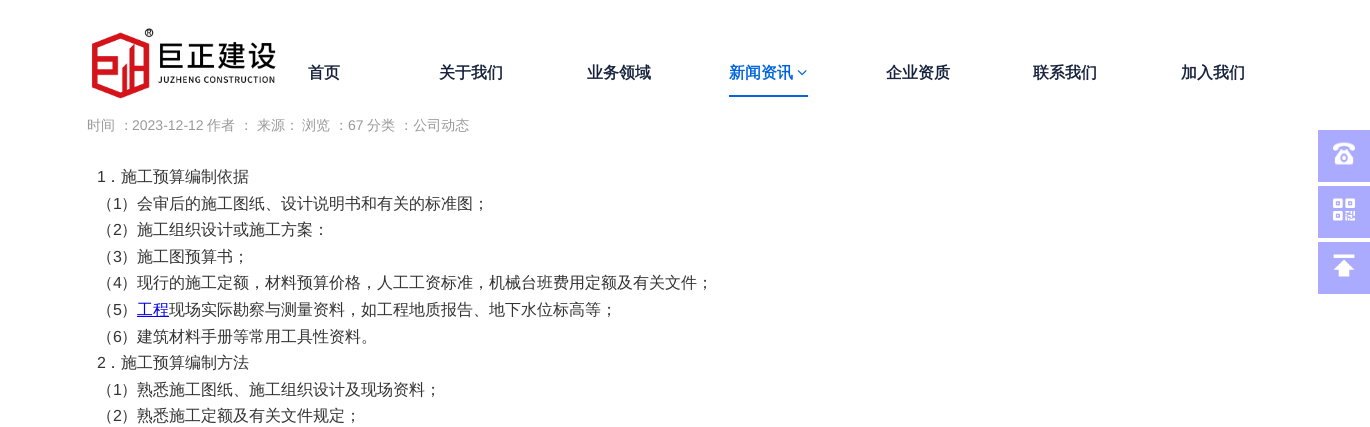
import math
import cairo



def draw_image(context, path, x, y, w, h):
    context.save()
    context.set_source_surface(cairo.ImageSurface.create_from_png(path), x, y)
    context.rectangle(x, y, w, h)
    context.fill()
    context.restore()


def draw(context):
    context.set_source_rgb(1, 1, 1)
    context.paint()
    draw_image(context, "images/1.png", 91, 28, 185, 71)
    context.set_source_rgb(0, 101 / 255, 221 / 255)
    context.rectangle(729, 95, 79, 2)
    context.fill()
    draw_image(context, "images/2.png", 797, 70, 10, 6)
    context.set_source_rgb(170 / 255, 170 / 255, 1)
    context.rectangle(1318, 130, 52, 52)
    context.fill()
    draw_image(context, "images/3.png", 1333, 142, 22, 23)
    context.rectangle(1318, 186, 52, 52)
    context.fill()
    draw_image(context, "images/4.png", 1333, 198, 22, 23)
    context.rectangle(1318, 242, 52, 52)
    context.fill()
    draw_image(context, "images/5.png", 1333, 254, 22, 23)
    context.set_source_rgb(0, 0, 238 / 255)
    context.rectangle(137, 316, 32, 1)
    context.fill()
    context.select_font_face("WenQuanYi Zen Hei", cairo.FontSlant.NORMAL, cairo.FontWeight.BOLD)
    context.set_font_size(16)
    context.set_source_rgb(23 / 255, 35 / 255, 61 / 255)
    context.move_to(308, 78)
    context.show_text("首页")
    context.move_to(439, 78)
    context.show_text("关于我们")
    context.move_to(587, 78)
    context.show_text("业务领域")
    context.set_source_rgb(0, 101 / 255, 221 / 255)
    context.move_to(729, 78)
    context.show_text("新闻资讯")
    context.set_source_rgb(23 / 255, 35 / 255, 61 / 255)
    context.move_to(886, 78)
    context.show_text("企业资质")
    context.move_to(1033, 78)
    context.show_text("联系我们")
    context.move_to(1181, 78)
    context.show_text("加入我们")
    context.select_font_face("WenQuanYi Zen Hei Medium")
    context.set_font_size(14)
    context.set_source_rgb(153 / 255, 153 / 255, 153 / 255)
    context.move_to(87, 130)
    context.show_text("时间 ：")
    context.select_font_face("Liberation Sans")
    context.move_to(132, 130)
    context.show_text("2023-12-12")
    context.select_font_face("WenQuanYi Zen Hei Medium")
    context.move_to(207, 130)
    context.show_text("作者 ：")
    context.move_to(257, 130)
    context.show_text("来源：")
    context.move_to(302, 130)
    context.show_text("浏览 ：")
    context.select_font_face("Liberation Sans")
    context.move_to(348, 130)
    context.show_text("67")
    context.select_font_face("WenQuanYi Zen Hei Medium")
    context.move_to(367, 130)
    context.show_text("分类 ：公司动态")
    context.select_font_face("Liberation Sans")
    context.set_font_size(16)
    context.set_source_rgb(51 / 255, 51 / 255, 51 / 255)
    context.move_to(97, 182)
    context.show_text("1")
    context.select_font_face("WenQuanYi Zen Hei Medium")
    context.move_to(105, 182)
    context.show_text("．施工预算编制依据")
    context.move_to(97, 209)
    context.show_text("（")
    context.select_font_face("Liberation Sans")
    context.move_to(113, 209)
    context.show_text("1")
    context.select_font_face("WenQuanYi Zen Hei Medium")
    context.move_to(121, 209)
    context.show_text("）会审后的施工图纸、设计说明书和有关的标准图；")
    context.move_to(97, 235)
    context.show_text("（")
    context.select_font_face("Liberation Sans")
    context.move_to(113, 235)
    context.show_text("2")
    context.select_font_face("WenQuanYi Zen Hei Medium")
    context.move_to(121, 235)
    context.show_text("）施工组织设计或施工方案：")
    context.move_to(97, 262)
    context.show_text("（")
    context.select_font_face("Liberation Sans")
    context.move_to(113, 262)
    context.show_text("3")
    context.select_font_face("WenQuanYi Zen Hei Medium")
    context.move_to(121, 262)
    context.show_text("）施工图预算书；")
    context.move_to(97, 288)
    context.show_text("（")
    context.select_font_face("Liberation Sans")
    context.move_to(113, 288)
    context.show_text("4")
    context.select_font_face("WenQuanYi Zen Hei Medium")
    context.move_to(121, 288)
    context.show_text("）现行的施工定额，材料预算价格，人工工资标准，机械台班费用定额及有关文件；")
    context.move_to(97, 315)
    context.show_text("（")
    context.select_font_face("Liberation Sans")
    context.move_to(113, 315)
    context.show_text("5")
    context.select_font_face("WenQuanYi Zen Hei Medium")
    context.move_to(121, 315)
    context.show_text("）")
    context.set_source_rgb(0, 0, 238 / 255)
    context.move_to(137, 315)
    context.show_text("工程")
    context.set_source_rgb(51 / 255, 51 / 255, 51 / 255)
    context.move_to(169, 315)
    context.show_text("现场实际勘察与测量资料，如工程地质报告、地下水位标高等；")
    context.move_to(97, 342)
    context.show_text("（")
    context.select_font_face("Liberation Sans")
    context.move_to(113, 342)
    context.show_text("6")
    context.select_font_face("WenQuanYi Zen Hei Medium")
    context.move_to(121, 342)
    context.show_text("）建筑材料手册等常用工具性资料。")
    context.select_font_face("Liberation Sans")
    context.move_to(97, 368)
    context.show_text("2")
    context.select_font_face("WenQuanYi Zen Hei Medium")
    context.move_to(105, 368)
    context.show_text("．施工预算编制方法")
    context.move_to(97, 395)
    context.show_text("（")
    context.select_font_face("Liberation Sans")
    context.move_to(113, 395)
    context.show_text("1")
    context.select_font_face("WenQuanYi Zen Hei Medium")
    context.move_to(121, 395)
    context.show_text("）熟悉施工图纸、施工组织设计及现场资料；")
    context.move_to(97, 421)
    context.show_text("（")
    context.select_font_face("Liberation Sans")
    context.move_to(113, 421)
    context.show_text("2")
    context.select_font_face("WenQuanYi Zen Hei Medium")
    context.move_to(121, 421)
    context.show_text("）熟悉施工定额及有关文件规定；")


surface = cairo.ImageSurface(cairo.Format.RGB24, 1370, 427)
context = cairo.Context(surface)
options = cairo.FontOptions()
options.set_hint_metrics(cairo.HintMetrics.OFF)
options.set_hint_style(cairo.HintStyle.NONE)
context.set_font_options(options)
context.set_miter_limit(4)
draw(context)
surface.write_to_png("out.png")
